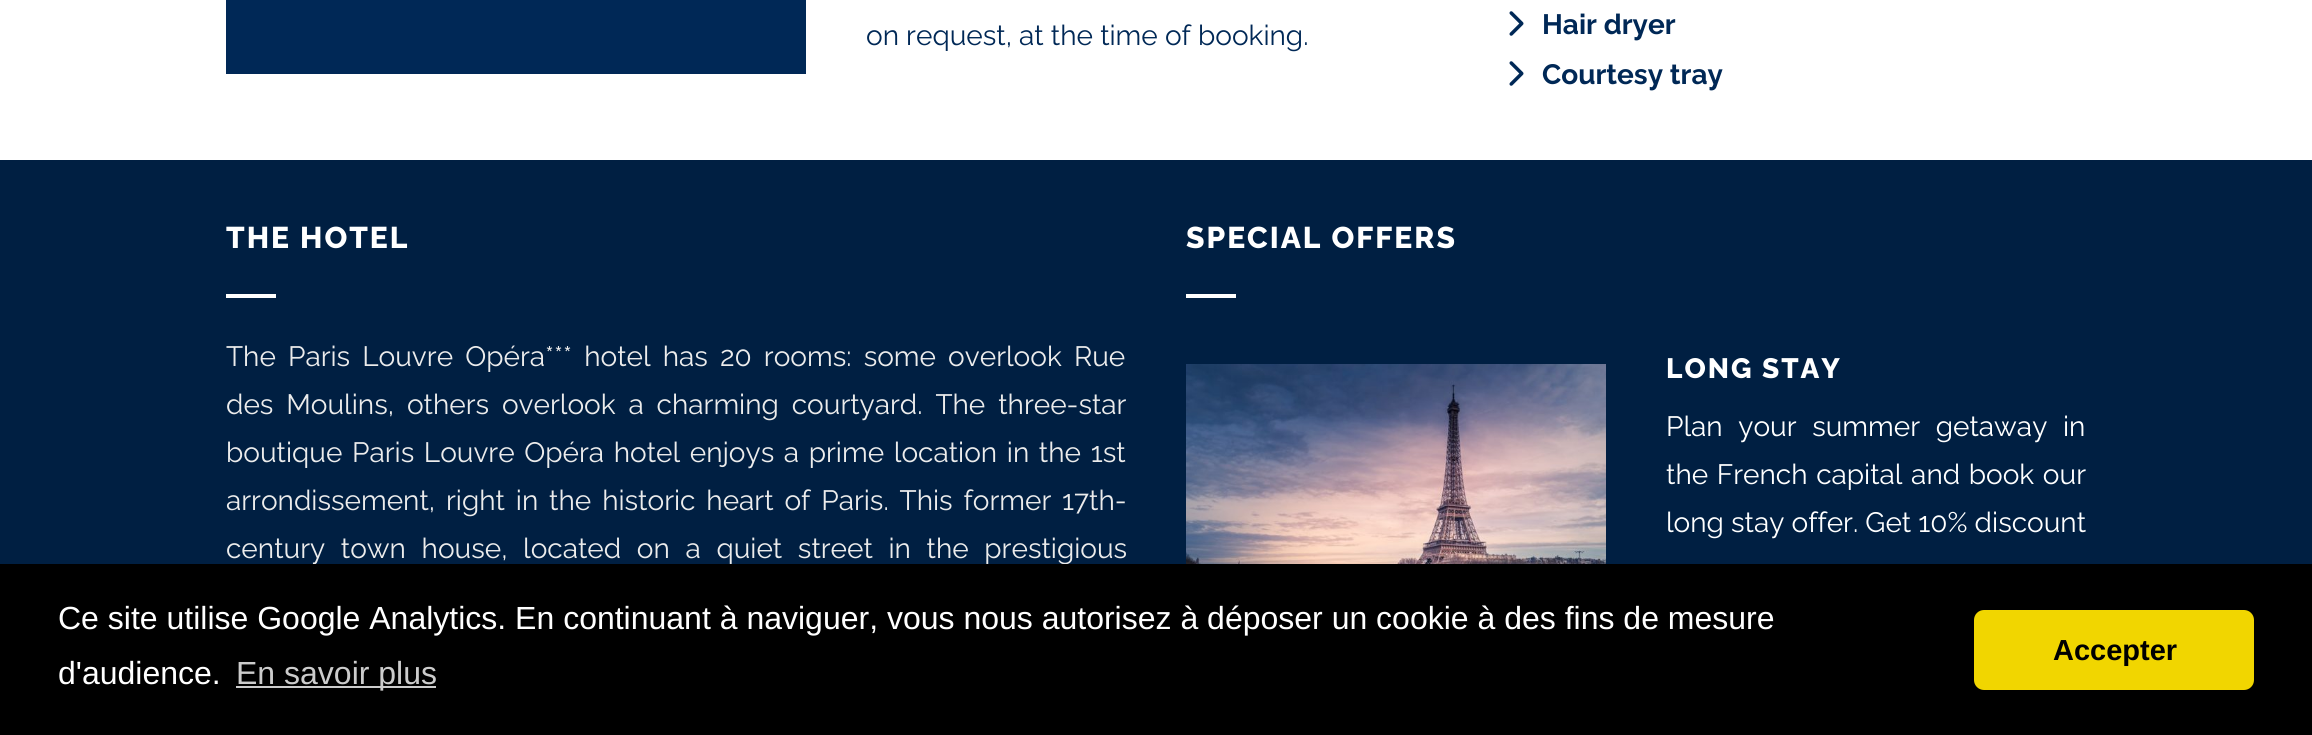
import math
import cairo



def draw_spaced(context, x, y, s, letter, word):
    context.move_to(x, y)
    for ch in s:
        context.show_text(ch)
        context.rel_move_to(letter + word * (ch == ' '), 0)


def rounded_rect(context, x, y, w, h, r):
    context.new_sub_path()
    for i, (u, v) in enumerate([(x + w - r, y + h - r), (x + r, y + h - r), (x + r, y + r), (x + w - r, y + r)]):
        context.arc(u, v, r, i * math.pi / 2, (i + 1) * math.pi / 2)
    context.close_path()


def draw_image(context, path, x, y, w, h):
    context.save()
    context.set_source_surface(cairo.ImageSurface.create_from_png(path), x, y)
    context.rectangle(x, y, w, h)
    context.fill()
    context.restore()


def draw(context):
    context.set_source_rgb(1, 1, 1)
    context.paint()
    context.set_source_rgb(0, 40 / 255, 86 / 255)
    context.rectangle(226, 0, 580, 74)
    context.fill()
    draw_image(context, "images/1.png", 1509, 11, 15, 25)
    draw_image(context, "images/1.png", 1509, 61, 15, 25)
    context.set_source_rgb(0, 31 / 255, 66 / 255)
    context.rectangle(0, 160, 2312, 404)
    context.fill()
    context.set_source_rgb(1, 1, 1)
    context.rectangle(226, 294, 50, 4)
    context.fill()
    context.rectangle(1186, 294, 50, 4)
    context.fill()
    draw_image(context, "images/2.png", 1186, 364, 420, 200)
    context.select_font_face("Raleway")
    context.set_font_size(28)
    context.set_source_rgb(0, 40 / 255, 86 / 255)
    context.move_to(866, 45)
    context.show_text("on request, at the time of booking.")
    context.select_font_face("Raleway", cairo.FontSlant.NORMAL, cairo.FontWeight.BOLD)
    context.move_to(1542, 34)
    context.show_text("Hair dryer")
    context.move_to(1542, 84)
    context.show_text("Courtesy tray")
    context.select_font_face("Raleway ExtraBold")
    context.set_font_size(30)
    context.set_source_rgb(1, 1, 1)
    draw_spaced(context, 226, 248, "THE HOTEL", 2, 0)
    context.select_font_face("Raleway")
    context.set_font_size(28)
    context.set_source_rgb(236 / 255, 236 / 255, 236 / 255)
    draw_spaced(context, 226, 366, "The Paris Louvre Opéra*** hotel has 20 rooms: some overlook Rue", 0, 5)
    draw_spaced(context, 226, 414, "des Moulins, others overlook a charming courtyard. The three-star", 0, 5.75)
    draw_spaced(context, 226, 462, "boutique Paris Louvre Opéra hotel enjoys a prime location in the 1st", 0, 2.5)
    draw_spaced(context, 226, 510, "arrondissement, right in the historic heart of Paris. This former 17th-", 0, 3.75)
    draw_spaced(context, 226, 558, "century town house, located on a quiet street in the prestigious", 0, 8.5)
    context.select_font_face("Raleway ExtraBold")
    context.set_font_size(30)
    context.set_source_rgb(1, 1, 1)
    draw_spaced(context, 1186, 248, "SPECIAL OFFERS", 2, 0)
    context.set_font_size(28)
    draw_spaced(context, 1666, 378, "LONG STAY", 2, 0)
    context.select_font_face("Raleway")
    draw_spaced(context, 1666, 436, "Plan your summer getaway in", 0, 8.5)
    draw_spaced(context, 1666, 484, "the French capital and book our", 0, 1.5)
    context.move_to(1666, 532)
    context.show_text("long stay offer. Get 10% discount")
    context.set_source_rgb(0, 0, 0)
    context.rectangle(0, 564, 2312, 171)
    context.fill()
    context.select_font_face("Liberation Sans")
    context.set_font_size(32)
    context.set_source_rgb(1, 1, 1)
    context.move_to(58, 629)
    context.show_text("Ce site utilise Google Analytics. En continuant à naviguer, vous nous autorisez à déposer un cookie à des fins de mesure")
    context.move_to(58, 684)
    context.show_text("d'audience.")
    context.set_source_rgb(204 / 255, 204 / 255, 204 / 255)
    context.rectangle(236, 686, 200, 2)
    context.fill()
    context.move_to(236, 684)
    context.show_text("En savoir plus")
    context.set_source_rgb(241 / 255, 214 / 255, 0)
    rounded_rect(context, 1974, 610, 280, 80, 10)
    context.fill()
    context.select_font_face("Liberation Sans", cairo.FontSlant.NORMAL, cairo.FontWeight.BOLD)
    context.set_font_size(29)
    context.set_source_rgb(0, 0, 0)
    context.move_to(2053, 660)
    context.show_text("Accepter")


surface = cairo.ImageSurface(cairo.Format.RGB24, 2312, 735)
context = cairo.Context(surface)
options = cairo.FontOptions()
options.set_hint_metrics(cairo.HintMetrics.OFF)
options.set_hint_style(cairo.HintStyle.NONE)
context.set_font_options(options)
context.set_miter_limit(4)
draw(context)
surface.write_to_png("out.png")
